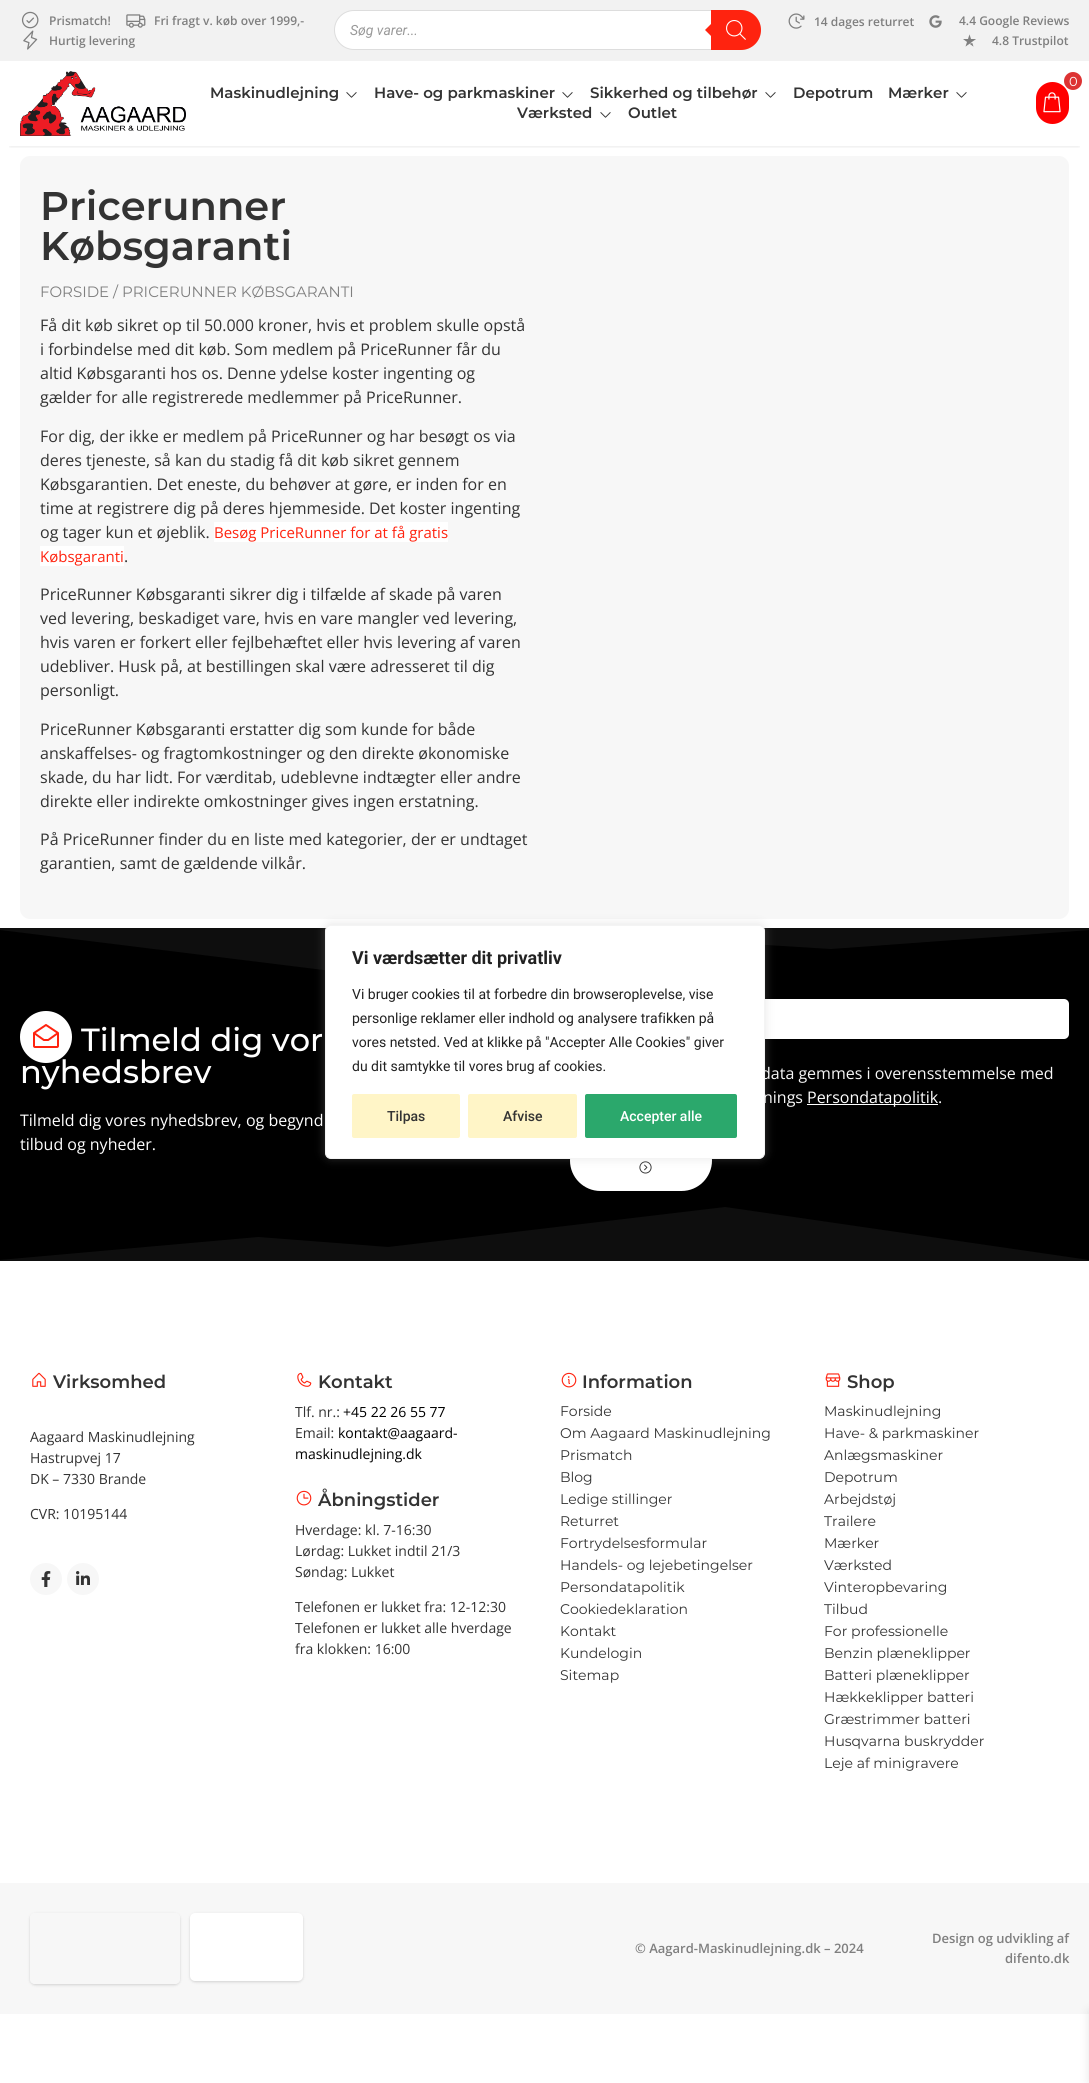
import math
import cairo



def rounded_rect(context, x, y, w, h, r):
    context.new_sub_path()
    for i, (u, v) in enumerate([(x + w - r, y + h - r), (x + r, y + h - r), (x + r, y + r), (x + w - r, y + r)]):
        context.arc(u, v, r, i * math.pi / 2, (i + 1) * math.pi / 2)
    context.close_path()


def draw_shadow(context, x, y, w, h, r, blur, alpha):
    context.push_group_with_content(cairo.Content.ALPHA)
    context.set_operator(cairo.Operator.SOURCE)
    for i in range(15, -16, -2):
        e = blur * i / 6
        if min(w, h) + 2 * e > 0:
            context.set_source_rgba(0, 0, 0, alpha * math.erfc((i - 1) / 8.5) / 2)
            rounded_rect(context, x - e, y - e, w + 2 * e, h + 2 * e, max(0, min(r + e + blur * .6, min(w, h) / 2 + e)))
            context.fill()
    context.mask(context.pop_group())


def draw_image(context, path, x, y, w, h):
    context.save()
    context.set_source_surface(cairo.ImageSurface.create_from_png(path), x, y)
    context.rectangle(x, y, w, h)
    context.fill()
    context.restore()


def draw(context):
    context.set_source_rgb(1, 1, 1)
    context.paint()
    context.set_source_rgb(242 / 255, 242 / 255, 242 / 255)
    context.rectangle(0, 0, 1089, 61)
    context.fill()
    draw_image(context, "images/1.png", 21, 11, 18, 18)
    draw_image(context, "images/2.png", 126, 14, 20, 14)
    draw_image(context, "images/3.png", 23, 30, 15, 20)
    context.set_source_rgb(1, 1, 1)
    rounded_rect(context, 334.5, 10.5, 426, 39, 19.5)
    context.fill_preserve()
    context.set_source_rgb(221 / 255, 221 / 255, 221 / 255)
    context.set_line_width(1)
    context.stroke()
    context.set_source_rgb(1, 35 / 255, 15 / 255)
    context.new_path()
    context.move_to(711, 10)
    context.line_to(741, 10)
    context.curve_to(752, 10, 761, 19, 761, 30)
    context.curve_to(761, 41, 752, 50, 741, 50)
    context.line_to(711, 50)
    context.close_path()
    context.fill()
    context.new_path()
    context.move_to(713, 22)
    context.line_to(713, 38)
    context.line_to(705, 30)
    context.close_path()
    context.fill()
    draw_image(context, "images/4.png", 726, 20, 20, 20)
    draw_image(context, "images/5.png", 788, 13, 17, 16)
    draw_image(context, "images/6.png", 929, 15, 13, 13)
    draw_image(context, "images/7.png", 963, 34, 13, 13)
    context.save()
    context.rectangle(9, 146, 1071, 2)
    context.clip()
    context.set_source_rgb(0, 0, 0)
    draw_shadow(context, 10, 81, 1069, 65, 0, 2.5, 0.12)
    context.restore()
    draw_image(context, "images/8.png", 20, 71, 166, 65)
    context.set_source_rgb(1, 0, 0)
    rounded_rect(context, 1036, 82, 33, 42, 16.5)
    context.fill()
    context.set_source_rgb(221 / 255, 51 / 255, 51 / 255)
    context.arc(1073, 81, 9, 0, 2 * math.pi)
    context.fill()
    draw_image(context, "images/9.png", 1043, 92, 18, 21)
    draw_image(context, "images/10.png", 346, 92, 11, 6)
    draw_image(context, "images/10.png", 562, 92, 11, 6)
    draw_image(context, "images/10.png", 765, 92, 11, 6)
    draw_image(context, "images/10.png", 956, 92, 11, 6)
    draw_image(context, "images/10.png", 600, 112, 11, 6)
    context.set_source_rgb(247 / 255, 247 / 255, 247 / 255)
    context.new_path()
    context.move_to(30, 156)
    context.line_to(550, 156)
    context.line_to(550, 919)
    context.line_to(30, 919)
    context.curve_to(24.5, 919, 20, 914.5, 20, 909)
    context.line_to(20, 166)
    context.curve_to(20, 160.5, 24.5, 156, 30, 156)
    context.close_path()
    context.fill()
    context.set_source_rgb(1, 1, 1)
    context.rectangle(214, 522, 234, 20)
    context.fill()
    context.rectangle(40, 546, 84, 20)
    context.fill()
    context.set_source_rgb(247 / 255, 247 / 255, 247 / 255)
    context.new_path()
    context.move_to(550, 156)
    context.line_to(1059, 156)
    context.curve_to(1064.5, 156, 1069, 160.5, 1069, 166)
    context.line_to(1069, 909)
    context.curve_to(1069, 914.5, 1064.5, 919, 1059, 919)
    context.line_to(550, 919)
    context.close_path()
    context.fill()
    context.set_source_rgb(0, 0, 0)
    context.rectangle(0, 930, 1089, 330)
    context.fill()
    context.set_source_rgb(14 / 255, 14 / 255, 14 / 255)
    context.new_path()
    context.move_to(831, 949)
    context.line_to(701, 941)
    context.line_to(364, 975)
    context.line_to(0, 930)
    context.line_to(0, 928)
    context.line_to(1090, 928)
    context.line_to(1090, 930)
    context.fill()
    context.set_source_rgb(1, 1, 1)
    rounded_rect(context, 570, 999, 499, 40, 5)
    context.fill()
    rounded_rect(context, 570, 1130, 142, 61, 30.5)
    context.fill()
    draw_image(context, "images/12.png", 639, 1161, 13, 13)
    context.set_source_rgb(172 / 255, 171 / 255, 171 / 255)
    draw_shadow(context, 325, 924, 440, 234, 6, 5, 0.3)
    context.set_source_rgb(1, 1, 1)
    context.arc(46, 1037, 26, 0, 2 * math.pi)
    context.fill()
    draw_image(context, "images/11.png", 33, 1024, 26, 24)
    context.rectangle(807, 1104, 131, 1)
    context.fill()
    context.set_source_rgb(14 / 255, 14 / 255, 14 / 255)
    context.new_path()
    context.move_to(258, 1237)
    context.line_to(388, 1247)
    context.line_to(725, 1207)
    context.line_to(1089, 1260)
    context.line_to(1089, 1263)
    context.line_to(-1, 1263)
    context.line_to(-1, 1260)
    context.fill()
    context.set_source_rgb(1, 1, 1)
    context.rectangle(0, 1261, 1089, 2)
    context.fill()
    draw_image(context, "images/13.png", 32, 1372, 14, 15)
    context.set_source_rgb(247 / 255, 247 / 255, 247 / 255)
    context.arc(46, 1579, 16, 0, 2 * math.pi)
    context.fill()
    draw_image(context, "images/14.png", 41, 1571, 10, 16)
    context.arc(83, 1579, 16, 0, 2 * math.pi)
    context.fill()
    draw_image(context, "images/15.png", 76, 1571, 14, 14)
    draw_image(context, "images/16.png", 297, 1372, 15, 15)
    draw_image(context, "images/17.png", 296, 1490, 16, 16)
    draw_image(context, "images/18.png", 561, 1372, 16, 16)
    draw_image(context, "images/19.png", 825, 1373, 16, 14)
    context.rectangle(0, 1883, 1089, 131)
    context.fill()
    context.save()
    context.set_fill_rule(cairo.FillRule.EVEN_ODD)
    context.new_path()
    context.move_to(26, 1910)
    context.line_to(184, 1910)
    context.line_to(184, 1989)
    context.line_to(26, 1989)
    context.close_path()
    context.move_to(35, 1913)
    context.line_to(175, 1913)
    context.curve_to(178, 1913, 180, 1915, 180, 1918)
    context.line_to(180, 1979)
    context.curve_to(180, 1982, 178, 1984, 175, 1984)
    context.line_to(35, 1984)
    context.curve_to(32, 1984, 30, 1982, 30, 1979)
    context.line_to(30, 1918)
    context.curve_to(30, 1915, 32, 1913, 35, 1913)
    context.close_path()
    context.clip()
    context.set_source_rgb(0, 0, 0)
    draw_shadow(context, 30, 1914, 150, 71, 5, 1, 0.06)
    context.restore()
    context.save()
    context.set_fill_rule(cairo.FillRule.EVEN_ODD)
    context.new_path()
    context.move_to(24, 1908)
    context.line_to(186, 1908)
    context.line_to(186, 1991)
    context.line_to(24, 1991)
    context.close_path()
    context.move_to(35, 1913)
    context.line_to(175, 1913)
    context.curve_to(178, 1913, 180, 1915, 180, 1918)
    context.line_to(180, 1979)
    context.curve_to(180, 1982, 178, 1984, 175, 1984)
    context.line_to(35, 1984)
    context.curve_to(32, 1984, 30, 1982, 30, 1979)
    context.line_to(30, 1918)
    context.curve_to(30, 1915, 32, 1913, 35, 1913)
    context.close_path()
    context.clip()
    context.set_source_rgb(0, 0, 0)
    draw_shadow(context, 30, 1914, 150, 71, 5, 1.5, 0.1)
    context.restore()
    context.set_source_rgb(0, 0, 0)
    draw_shadow(context, 190, 1914, 113, 68, 5, 1, 0.06)
    draw_shadow(context, 190, 1914, 113, 68, 5, 1.5, 0.1)
    context.set_source_rgb(1, 1, 1)
    rounded_rect(context, 190, 1913, 113, 68, 5)
    context.fill()
    context.set_source_rgb(0, 0, 0)
    draw_shadow(context, 1089, 2011, 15, 71, 0, 5, 0.1)
    context.select_font_face("Open Sans SemiBold")
    context.set_font_size(12)
    context.set_source_rgb(127 / 255, 127 / 255, 127 / 255)
    context.move_to(49, 25)
    context.show_text("Prismatch!")
    context.move_to(154, 25)
    context.show_text("Fri fragt v. køb over 1999,-")
    context.move_to(49, 45)
    context.show_text("Hurtig levering")
    context.select_font_face("Roboto", cairo.FontSlant.ITALIC)
    context.set_font_size(14)
    context.set_source_rgb(153 / 255, 153 / 255, 153 / 255)
    context.move_to(350, 35)
    context.show_text("Søg varer...")
    context.select_font_face("Open Sans SemiBold")
    context.set_font_size(12)
    context.set_source_rgb(127 / 255, 127 / 255, 127 / 255)
    context.move_to(814, 26)
    context.show_text("14 dages returret")
    context.move_to(959, 25)
    context.show_text("4.4 Google Reviews")
    context.move_to(992, 45)
    context.show_text("4.8 Trustpilot")
    context.select_font_face("Montserrat")
    context.set_font_size(13)
    context.set_source_rgb(1, 1, 1)
    context.move_to(1069, 86)
    context.show_text("0")
    context.select_font_face("Montserrat SemiBold")
    context.set_font_size(15)
    context.set_source_rgb(51 / 255, 51 / 255, 51 / 255)
    context.move_to(210, 98)
    context.show_text("Maskinudlejning")
    context.move_to(374, 98)
    context.show_text("Have- og parkmaskiner")
    context.move_to(590, 98)
    context.show_text("Sikkerhed og tilbehør")
    context.move_to(793, 98)
    context.show_text("Depotrum")
    context.move_to(888, 98)
    context.show_text("Mærker")
    context.move_to(517, 118)
    context.show_text("Værksted")
    context.move_to(628, 118)
    context.show_text("Outlet")
    context.set_font_size(40)
    context.move_to(40, 220)
    context.show_text("Pricerunner")
    context.move_to(40, 260)
    context.show_text("Købsgaranti")
    context.select_font_face("Montserrat")
    context.set_font_size(15)
    context.set_source_rgb(127 / 255, 127 / 255, 127 / 255)
    context.move_to(40, 297)
    context.show_text("FORSIDE / PRICERUNNER KØBSGARANTI")
    context.select_font_face("Open Sans")
    context.set_font_size(16)
    context.set_source_rgb(51 / 255, 51 / 255, 51 / 255)
    context.move_to(40, 331)
    context.show_text("Få dit køb sikret op til 50.000 kroner, hvis et problem skulle opstå")
    context.move_to(40, 355)
    context.show_text("i forbindelse med dit køb. Som medlem på PriceRunner får du")
    context.move_to(40, 379)
    context.show_text("altid Købsgaranti hos os. Denne ydelse koster ingenting og")
    context.move_to(40, 403)
    context.show_text("gælder for alle registrerede medlemmer på PriceRunner.")
    context.move_to(40, 442)
    context.show_text("For dig, der ikke er medlem på PriceRunner og har besøgt os via")
    context.move_to(40, 466)
    context.show_text("deres tjeneste, så kan du stadig få dit køb sikret gennem")
    context.move_to(40, 490)
    context.show_text("Købsgarantien. Det eneste, du behøver at gøre, er inden for en")
    context.move_to(40, 514)
    context.show_text("time at registrere dig på deres hjemmeside. Det koster ingenting")
    context.move_to(40, 538)
    context.show_text("og tager kun et øjeblik.")
    context.set_font_size(15)
    context.set_source_rgb(1, 35 / 255, 15 / 255)
    context.move_to(214, 538)
    context.show_text("Besøg PriceRunner for at få gratis")
    context.move_to(40, 562)
    context.show_text("Købsgaranti")
    context.set_font_size(16)
    context.set_source_rgb(51 / 255, 51 / 255, 51 / 255)
    context.move_to(124, 562)
    context.show_text(".")
    context.move_to(40, 600)
    context.show_text("PriceRunner Købsgaranti sikrer dig i tilfælde af skade på varen")
    context.move_to(40, 624)
    context.show_text("ved levering, beskadiget vare, hvis en vare mangler ved levering,")
    context.move_to(40, 648)
    context.show_text("hvis varen er forkert eller fejlbehæftet eller hvis levering af varen")
    context.move_to(40, 672)
    context.show_text("udebliver. Husk på, at bestillingen skal være adresseret til dig")
    context.move_to(40, 696)
    context.show_text("personligt.")
    context.move_to(40, 735)
    context.show_text("PriceRunner Købsgaranti erstatter dig som kunde for både")
    context.move_to(40, 759)
    context.show_text("anskaffelses- og fragtomkostninger og den direkte økonomiske")
    context.move_to(40, 783)
    context.show_text("skade, du har lidt. For værditab, udeblevne indtægter eller andre")
    context.move_to(40, 807)
    context.show_text("direkte eller indirekte omkostninger gives ingen erstatning.")
    context.move_to(40, 845)
    context.show_text("På PriceRunner finder du en liste med kategorier, der er undtaget")
    context.move_to(40, 869)
    context.show_text("garantien, samt de gældende vilkår.")
    context.select_font_face("Montserrat Medium")
    context.set_font_size(32)
    context.set_source_rgb(1, 1, 1)
    context.move_to(81, 1051)
    context.show_text("Tilmeld dig vor")
    context.move_to(20, 1083)
    context.show_text("nyhedsbrev")
    context.select_font_face("Open Sans")
    context.set_font_size(16)
    context.move_to(20, 1126)
    context.show_text("Tilmeld dig vores nyhedsbrev, og begynd")
    context.move_to(20, 1150)
    context.show_text("tilbud og nyheder.")
    context.set_source_rgb(247 / 255, 247 / 255, 247 / 255)
    context.move_to(761, 1079)
    context.show_text("data gemmes i overensstemmelse med")
    context.move_to(763, 1103)
    context.show_text("nings")
    context.set_source_rgb(1, 1, 1)
    rounded_rect(context, 325.5, 925.5, 439, 233, 5.5)
    context.fill_preserve()
    context.set_source_rgb(244 / 255, 244 / 255, 244 / 255)
    context.stroke()
    context.set_source_rgb(43 / 255, 168 / 255, 108 / 255)
    rounded_rect(context, 585, 1094, 152, 44, 2)
    context.fill()
    context.select_font_face("Roboto Medium")
    context.set_font_size(14)
    context.set_source_rgb(1, 1, 1)
    context.move_to(620, 1121)
    context.show_text("Accepter alle")
    context.set_source_rgb(1, 245 / 255, 199 / 255)
    rounded_rect(context, 468, 1094, 109, 44, 2)
    context.fill()
    context.set_source_rgb(51 / 255, 51 / 255, 51 / 255)
    context.move_to(503, 1121)
    context.show_text("Afvise")
    context.set_source_rgb(1, 245 / 255, 199 / 255)
    rounded_rect(context, 352, 1094, 108, 44, 2)
    context.fill()
    context.set_source_rgb(51 / 255, 51 / 255, 51 / 255)
    context.move_to(387, 1121)
    context.show_text("Tilpas")
    context.select_font_face("Roboto")
    context.set_source_rgb(33 / 255, 33 / 255, 33 / 255)
    context.move_to(352, 1071)
    context.show_text("du dit samtykke til vores brug af cookies.")
    context.move_to(352, 1047)
    context.show_text("vores netsted. Ved at klikke på \"Accepter Alle Cookies\" giver")
    context.move_to(352, 1023)
    context.show_text("personlige reklamer eller indhold og analysere trafikken på")
    context.move_to(352, 999)
    context.show_text("Vi bruger cookies til at forbedre din browseroplevelse, vise")
    context.select_font_face("Roboto", cairo.FontSlant.NORMAL, cairo.FontWeight.BOLD)
    context.set_font_size(18)
    context.move_to(352, 964)
    context.show_text("Vi værdsætter dit privatliv")
    context.select_font_face("Open Sans")
    context.set_font_size(16)
    context.set_source_rgb(1, 1, 1)
    context.move_to(807, 1103)
    context.show_text("Persondatapolitik")
    context.set_source_rgb(247 / 255, 247 / 255, 247 / 255)
    context.move_to(938, 1103)
    context.show_text(".")
    context.select_font_face("Montserrat SemiBold")
    context.set_font_size(18)
    context.set_source_rgb(51 / 255, 51 / 255, 51 / 255)
    context.move_to(53, 1388)
    context.show_text("Virksomhed")
    context.select_font_face("Open Sans")
    context.set_font_size(14)
    context.move_to(30, 1442)
    context.show_text("Aagaard Maskinudlejning")
    context.move_to(30, 1463)
    context.show_text("Hastrupvej 17")
    context.move_to(30, 1484)
    context.show_text("DK – 7330 Brande")
    context.move_to(30, 1519)
    context.show_text("CVR: 10195144")
    context.select_font_face("Montserrat SemiBold")
    context.set_font_size(18)
    context.move_to(318, 1388)
    context.show_text("Kontakt")
    context.select_font_face("Open Sans")
    context.set_font_size(14)
    context.move_to(295, 1417)
    context.show_text("Tlf. nr.:")
    context.set_source_rgb(0, 0, 0)
    context.move_to(343, 1417)
    context.show_text("+45 22 26 55 77")
    context.set_source_rgb(51 / 255, 51 / 255, 51 / 255)
    context.move_to(295, 1438)
    context.show_text("Email:")
    context.set_source_rgb(0, 0, 0)
    context.move_to(338, 1438)
    context.show_text("kontakt@aagaard-")
    context.move_to(295, 1459)
    context.show_text("maskinudlejning.dk")
    context.select_font_face("Montserrat SemiBold")
    context.set_font_size(18)
    context.set_source_rgb(51 / 255, 51 / 255, 51 / 255)
    context.move_to(318, 1506)
    context.show_text("Åbningstider")
    context.select_font_face("Open Sans")
    context.set_font_size(14)
    context.move_to(295, 1535)
    context.show_text("Hverdage: kl. 7-16:30")
    context.move_to(295, 1556)
    context.show_text("Lørdag: Lukket indtil 21/3")
    context.move_to(295, 1577)
    context.show_text("Søndag: Lukket")
    context.move_to(295, 1612)
    context.show_text("Telefonen er lukket fra: 12-12:30")
    context.move_to(295, 1633)
    context.show_text("Telefonen er lukket alle hverdage")
    context.move_to(295, 1654)
    context.show_text("fra klokken: 16:00")
    context.select_font_face("Montserrat SemiBold")
    context.set_font_size(18)
    context.move_to(582, 1388)
    context.show_text("Information")
    context.select_font_face("Montserrat")
    context.set_font_size(14)
    context.move_to(560, 1416)
    context.show_text("Forside")
    context.move_to(560, 1438)
    context.show_text("Om Aagaard Maskinudlejning")
    context.move_to(560, 1460)
    context.show_text("Prismatch")
    context.move_to(560, 1482)
    context.show_text("Blog")
    context.move_to(560, 1504)
    context.show_text("Ledige stillinger")
    context.move_to(560, 1526)
    context.show_text("Returret")
    context.move_to(560, 1548)
    context.show_text("Fortrydelsesformular")
    context.move_to(560, 1570)
    context.show_text("Handels- og lejebetingelser")
    context.move_to(560, 1592)
    context.show_text("Persondatapolitik")
    context.move_to(560, 1614)
    context.show_text("Cookiedeklaration")
    context.move_to(560, 1636)
    context.show_text("Kontakt")
    context.move_to(560, 1658)
    context.show_text("Kundelogin")
    context.move_to(560, 1680)
    context.show_text("Sitemap")
    context.select_font_face("Montserrat SemiBold")
    context.set_font_size(18)
    context.move_to(847, 1388)
    context.show_text("Shop")
    context.select_font_face("Montserrat")
    context.set_font_size(14)
    context.move_to(824, 1416)
    context.show_text("Maskinudlejning")
    context.move_to(824, 1438)
    context.show_text("Have- & parkmaskiner")
    context.move_to(824, 1460)
    context.show_text("Anlægsmaskiner")
    context.move_to(824, 1482)
    context.show_text("Depotrum")
    context.move_to(824, 1504)
    context.show_text("Arbejdstøj")
    context.move_to(824, 1526)
    context.show_text("Trailere")
    context.move_to(824, 1548)
    context.show_text("Mærker")
    context.move_to(824, 1570)
    context.show_text("Værksted")
    context.move_to(824, 1592)
    context.show_text("Vinteropbevaring")
    context.move_to(824, 1614)
    context.show_text("Tilbud")
    context.move_to(824, 1636)
    context.show_text("For professionelle")
    context.move_to(824, 1658)
    context.show_text("Benzin plæneklipper")
    context.move_to(824, 1680)
    context.show_text("Batteri plæneklipper")
    context.move_to(824, 1702)
    context.show_text("Hækkeklipper batteri")
    context.move_to(824, 1724)
    context.show_text("Græstrimmer batteri")
    context.move_to(824, 1746)
    context.show_text("Husqvarna buskrydder")
    context.move_to(824, 1768)
    context.show_text("Leje af minigravere")
    context.select_font_face("Open Sans SemiBold")
    context.set_font_size(13)
    context.set_source_rgb(127 / 255, 127 / 255, 127 / 255)
    context.move_to(635, 1953)
    context.show_text("© Aagard-Maskinudlejning.dk – 2024")
    context.move_to(932, 1943)
    context.show_text("Design og udvikling af")
    context.move_to(1005, 1963)
    context.show_text("difento.dk")


surface = cairo.ImageSurface(cairo.Format.RGB24, 1089, 2083)
context = cairo.Context(surface)
options = cairo.FontOptions()
options.set_hint_metrics(cairo.HintMetrics.OFF)
options.set_hint_style(cairo.HintStyle.NONE)
context.set_font_options(options)
context.set_miter_limit(4)
draw(context)
surface.write_to_png("out.png")
